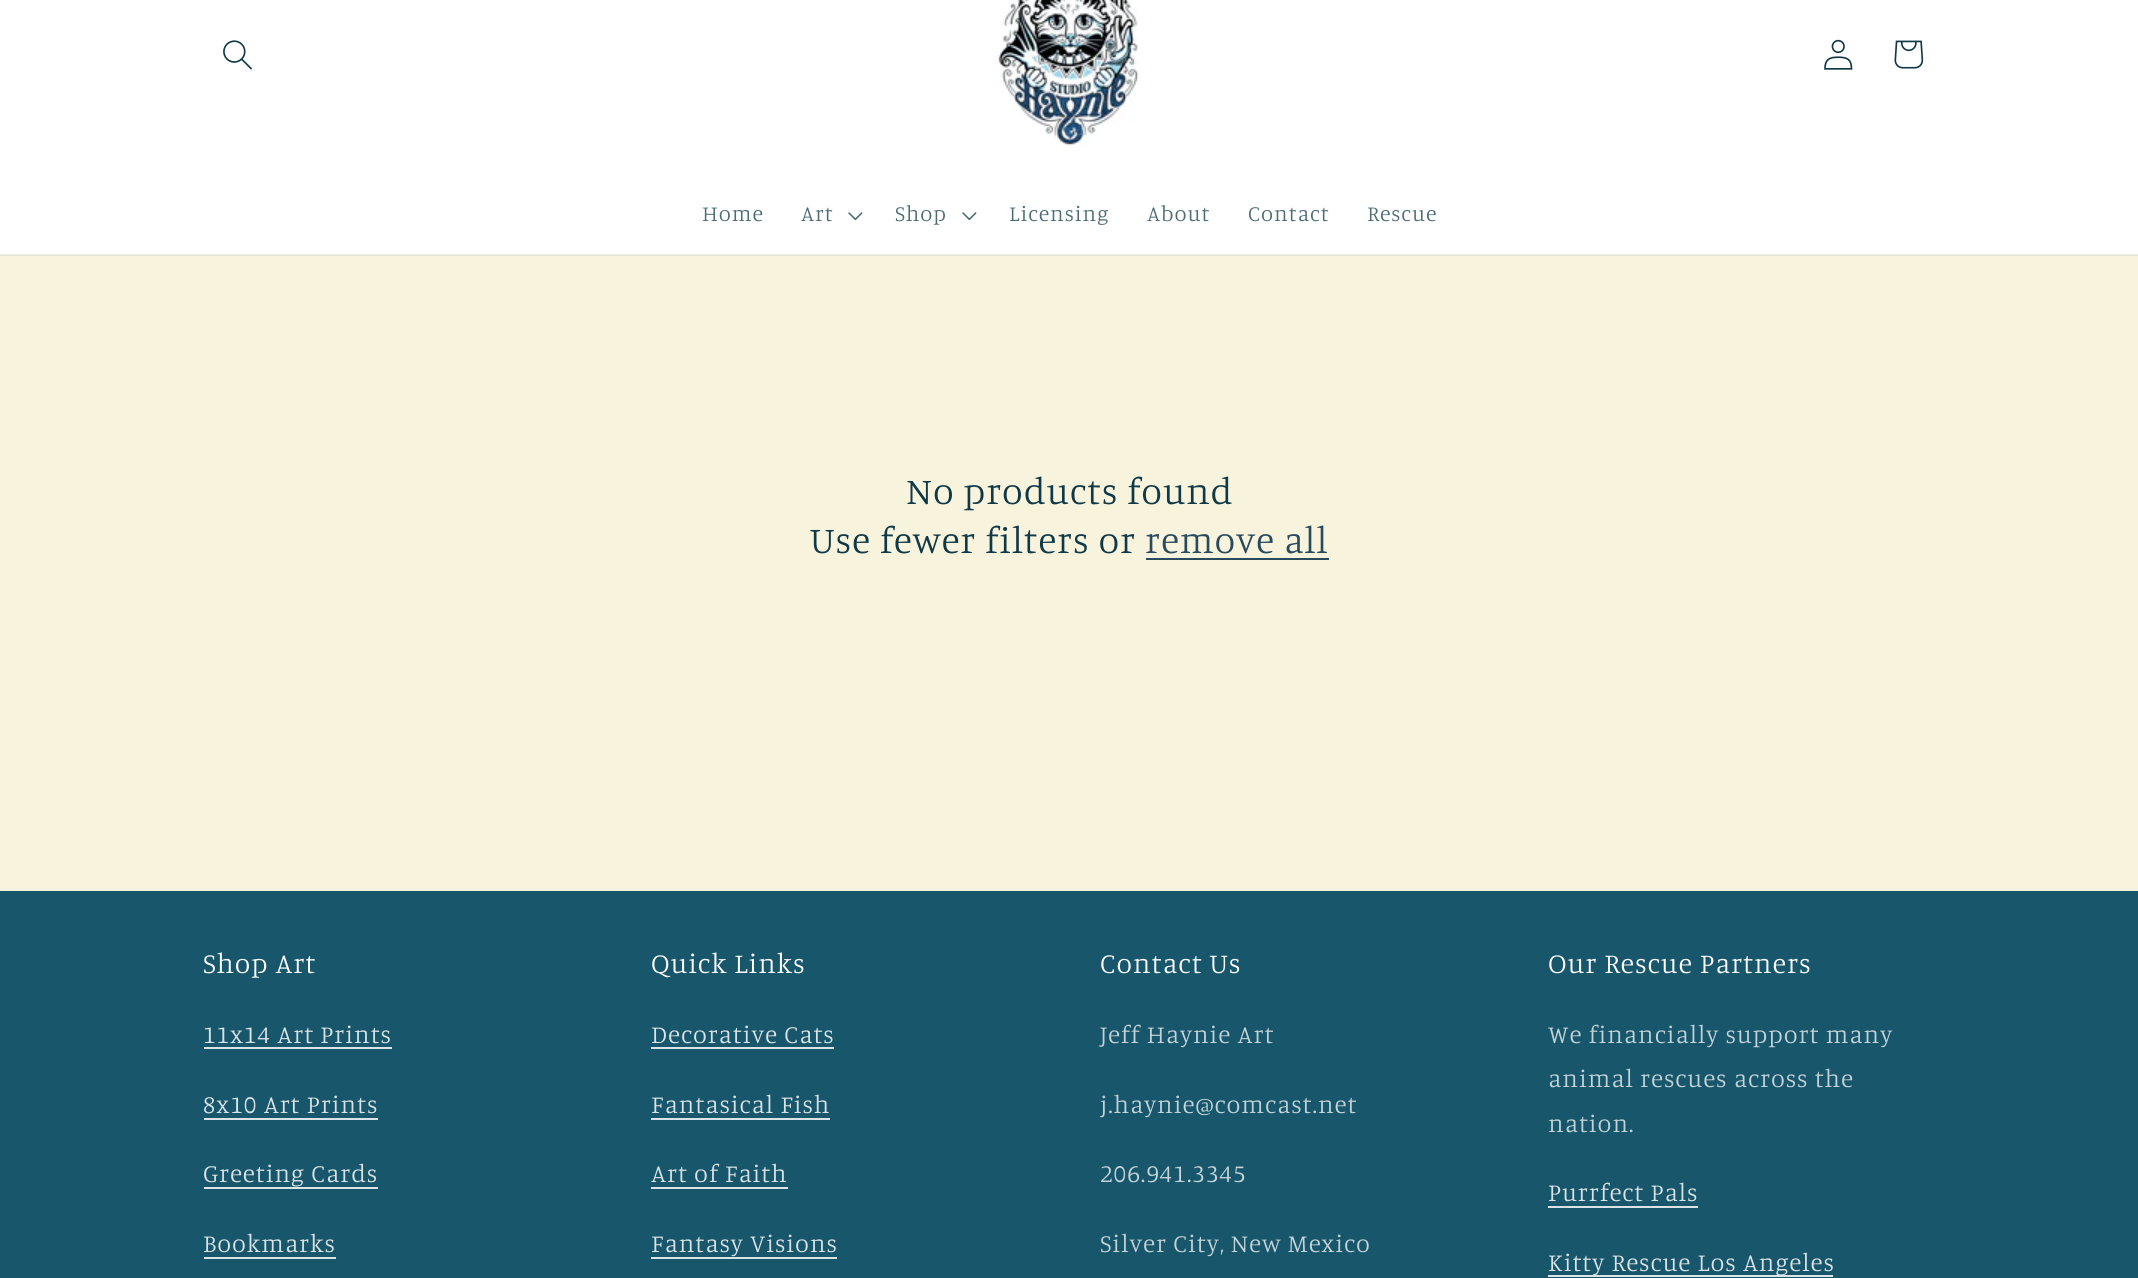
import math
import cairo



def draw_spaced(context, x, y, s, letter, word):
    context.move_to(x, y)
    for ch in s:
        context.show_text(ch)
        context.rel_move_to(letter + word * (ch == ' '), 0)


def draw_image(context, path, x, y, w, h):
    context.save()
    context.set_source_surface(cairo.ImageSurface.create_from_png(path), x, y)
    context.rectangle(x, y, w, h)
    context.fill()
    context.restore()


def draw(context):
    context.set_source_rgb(247 / 255, 243 / 255, 221 / 255)
    context.paint()
    context.set_source_rgb(229 / 255, 228 / 255, 209 / 255)
    context.rectangle(0, 255, 2138, 1)
    context.fill()
    context.set_source_rgb(1, 1, 1)
    context.rectangle(0, 0, 2138, 254)
    context.fill()
    context.set_source_rgb(236 / 255, 239 / 255, 240 / 255)
    context.rectangle(0, 254, 2138, 1)
    context.fill()
    draw_image(context, "images/1.png", 223, 40, 29, 30)
    draw_image(context, "images/2.png", 995, 0, 144, 149)
    draw_image(context, "images/3.png", 1824, 39, 29, 31)
    draw_image(context, "images/4.png", 1894, 40, 30, 29)
    draw_image(context, "images/5.png", 848, 212, 15, 9)
    draw_image(context, "images/5.png", 962, 212, 15, 9)
    context.set_source_rgb(41 / 255, 74 / 255, 93 / 255)
    context.rectangle(1146, 558, 183, 2)
    context.fill()
    context.set_source_rgb(24 / 255, 86 / 255, 108 / 255)
    context.rectangle(0, 891, 2138, 387)
    context.fill()
    context.set_source_rgb(218 / 255, 227 / 255, 230 / 255)
    context.rectangle(204, 1047, 188, 2)
    context.fill()
    context.rectangle(204, 1118, 174, 2)
    context.fill()
    context.rectangle(204, 1187, 174, 2)
    context.fill()
    context.rectangle(204, 1257, 132, 2)
    context.fill()
    context.rectangle(651, 1047, 183, 2)
    context.fill()
    context.rectangle(651, 1118, 179, 2)
    context.fill()
    context.rectangle(651, 1187, 137, 2)
    context.fill()
    context.rectangle(651, 1257, 186, 2)
    context.fill()
    context.rectangle(1548, 1206, 150, 2)
    context.fill()
    context.rectangle(1548, 1275, 285, 2)
    context.fill()
    context.select_font_face("Manuale Light")
    context.set_font_size(22)
    context.set_source_rgb(76 / 255, 107 / 255, 118 / 255)
    draw_spaced(context, 702, 221, "Home", 0.95, 0)
    draw_spaced(context, 801, 221, "Art", 0.95, 0)
    draw_spaced(context, 895, 221, "Shop", 0.95, 0)
    draw_spaced(context, 1009, 221, "Licensing", 0.95, 0)
    draw_spaced(context, 1147, 221, "About", 0.95, 0)
    draw_spaced(context, 1248, 221, "Contact", 0.95, 0)
    draw_spaced(context, 1367, 221, "Rescue", 0.95, 0)
    context.set_font_size(37.75)
    context.set_source_rgb(16 / 255, 57 / 255, 72 / 255)
    draw_spaced(context, 906, 504, "No products found", 0.95, 0)
    draw_spaced(context, 810, 553, "Use fewer filters or", 0.95, 0)
    context.set_source_rgb(41 / 255, 74 / 255, 93 / 255)
    draw_spaced(context, 1145, 553, "remove all", 0.95, 0)
    context.set_font_size(28.25)
    context.set_source_rgb(252 / 255, 252 / 255, 252 / 255)
    draw_spaced(context, 203, 973, "Shop Art", 0.95, 0)
    context.set_font_size(25.25)
    context.set_source_rgb(218 / 255, 227 / 255, 230 / 255)
    draw_spaced(context, 203, 1043, "11x14 Art Prints", 0.95, 0)
    draw_spaced(context, 203, 1113, "8x10 Art Prints", 0.95, 0)
    draw_spaced(context, 203, 1182, "Greeting Cards", 0.95, 0)
    draw_spaced(context, 203, 1252, "Bookmarks", 0.95, 0)
    context.set_font_size(28.25)
    context.set_source_rgb(252 / 255, 252 / 255, 252 / 255)
    draw_spaced(context, 651, 973, "Quick Links", 0.95, 0)
    context.set_font_size(25.25)
    context.set_source_rgb(218 / 255, 227 / 255, 230 / 255)
    draw_spaced(context, 651, 1043, "Decorative Cats", 0.95, 0)
    draw_spaced(context, 651, 1113, "Fantasical Fish", 0.95, 0)
    draw_spaced(context, 651, 1182, "Art of Faith", 0.95, 0)
    draw_spaced(context, 651, 1252, "Fantasy Visions", 0.95, 0)
    context.set_font_size(28.25)
    context.set_source_rgb(252 / 255, 252 / 255, 252 / 255)
    draw_spaced(context, 1100, 973, "Contact Us", 0.95, 0)
    context.set_font_size(25.25)
    context.set_source_rgb(195 / 255, 211 / 255, 216 / 255)
    draw_spaced(context, 1100, 1043, "Jeff Haynie Art", 0.95, 0)
    draw_spaced(context, 1100, 1113, "j.haynie@comcast.net", 0.95, 0)
    draw_spaced(context, 1100, 1182, "206.941.3345", 0.95, 0)
    draw_spaced(context, 1100, 1252, "Silver City, New Mexico", 0.95, 0)
    context.set_font_size(28.25)
    context.set_source_rgb(252 / 255, 252 / 255, 252 / 255)
    draw_spaced(context, 1548, 973, "Our Rescue Partners", 0.95, 0)
    context.set_font_size(25.25)
    context.set_source_rgb(195 / 255, 211 / 255, 216 / 255)
    draw_spaced(context, 1548, 1043, "We financially support many", 0.95, 0)
    draw_spaced(context, 1548, 1087, "animal rescues across the", 0.95, 0)
    draw_spaced(context, 1548, 1132, "nation.", 0.95, 0)
    context.set_source_rgb(218 / 255, 227 / 255, 230 / 255)
    draw_spaced(context, 1548, 1201, "Purrfect Pals", 0.95, 0)
    draw_spaced(context, 1548, 1271, "Kitty Rescue Los Angeles", 0.95, 0)


surface = cairo.ImageSurface(cairo.Format.RGB24, 2138, 1278)
context = cairo.Context(surface)
options = cairo.FontOptions()
options.set_hint_metrics(cairo.HintMetrics.OFF)
options.set_hint_style(cairo.HintStyle.NONE)
context.set_font_options(options)
context.set_miter_limit(4)
draw(context)
surface.write_to_png("out.png")
